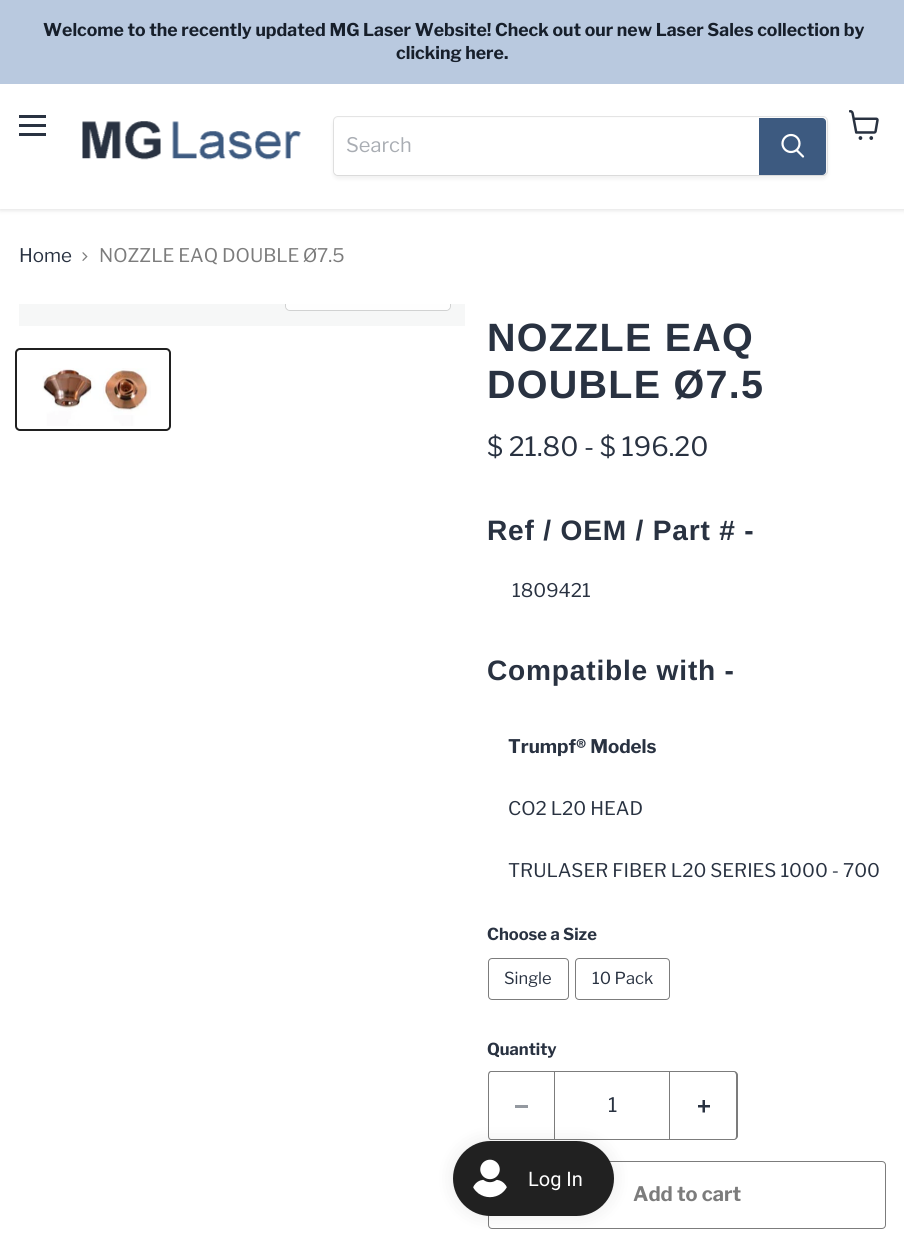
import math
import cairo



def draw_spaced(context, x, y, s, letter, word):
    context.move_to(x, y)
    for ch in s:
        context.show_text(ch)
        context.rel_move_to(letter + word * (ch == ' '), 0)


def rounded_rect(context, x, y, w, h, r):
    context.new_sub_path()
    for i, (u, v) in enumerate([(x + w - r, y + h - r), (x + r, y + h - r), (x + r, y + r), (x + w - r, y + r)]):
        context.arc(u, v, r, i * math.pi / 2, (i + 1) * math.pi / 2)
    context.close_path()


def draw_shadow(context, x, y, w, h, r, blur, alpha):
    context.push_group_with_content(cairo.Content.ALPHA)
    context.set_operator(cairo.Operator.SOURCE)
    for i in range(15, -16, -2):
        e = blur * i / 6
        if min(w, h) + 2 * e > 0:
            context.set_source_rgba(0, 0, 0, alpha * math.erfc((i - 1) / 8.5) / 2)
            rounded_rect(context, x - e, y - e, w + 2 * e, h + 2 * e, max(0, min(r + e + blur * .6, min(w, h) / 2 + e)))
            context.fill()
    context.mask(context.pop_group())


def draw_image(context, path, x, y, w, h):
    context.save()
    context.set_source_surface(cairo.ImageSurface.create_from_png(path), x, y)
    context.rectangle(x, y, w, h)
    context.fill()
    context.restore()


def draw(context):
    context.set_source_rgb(1, 1, 1)
    context.paint()
    context.set_source_rgb(128 / 255, 128 / 255, 128 / 255)
    draw_shadow(context, 0, 85, 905, 125, 0, 2.5, 0.25)
    context.set_source_rgb(185 / 255, 201 / 255, 223 / 255)
    context.rectangle(0, 0, 904, 84)
    context.fill()
    context.set_source_rgb(1, 1, 1)
    context.rectangle(0, 84, 904, 125)
    context.fill()
    context.set_source_rgb(41 / 255, 50 / 255, 65 / 255)
    context.rectangle(19, 115, 27, 3)
    context.fill()
    context.rectangle(19, 124, 27, 3)
    context.fill()
    context.rectangle(19, 133, 27, 3)
    context.fill()
    draw_image(context, "images/1.png", 849, 110, 30, 30)
    draw_image(context, "images/2.png", 82, 121, 219, 39)
    context.set_source_rgb(128 / 255, 128 / 255, 128 / 255)
    draw_shadow(context, 333, 119, 495, 60, 5, 2, 0.11)
    rounded_rect(context, 333.5, 116.5, 494, 59, 4.5)
    context.set_source_rgba(128 / 255, 128 / 255, 128 / 255, 0.2)
    context.set_line_width(1)
    context.stroke()
    context.set_source_rgb(1, 1, 1)
    context.new_path()
    context.move_to(338, 118)
    context.line_to(759, 118)
    context.line_to(759, 175)
    context.line_to(338, 175)
    context.curve_to(336, 175, 334, 173, 334, 171)
    context.line_to(334, 122)
    context.curve_to(334, 120, 336, 118, 338, 118)
    context.close_path()
    context.fill()
    context.set_source_rgb(61 / 255, 90 / 255, 128 / 255)
    context.new_path()
    context.move_to(759.5, 118.5)
    context.line_to(822, 118.5)
    context.curve_to(824, 118.5, 825.5, 120, 825.5, 122)
    context.line_to(825.5, 171)
    context.curve_to(825.5, 173, 824, 174.5, 822, 174.5)
    context.line_to(759.5, 174.5)
    context.close_path()
    context.fill_preserve()
    context.stroke()
    context.new_path()
    context.move_to(803, 156.5)
    context.line_to(797, 150.5)
    context.set_source_rgb(1, 1, 1)
    context.set_line_width(2.2)
    context.set_line_cap(cairo.LineCap.ROUND)
    context.stroke()
    context.arc(791, 143.5, 8.5, 0, 2 * math.pi)
    context.set_line_cap(cairo.LineCap.BUTT)
    context.stroke()
    draw_image(context, "images/3.png", 82, 252, 6, 9)
    context.set_source_rgb(246 / 255, 247 / 255, 247 / 255)
    context.rectangle(19, 304, 446, 22)
    context.fill()
    context.save()
    context.rectangle(19, 304, 446, 22)
    context.clip()
    rounded_rect(context, 285.5, 275.5, 165, 35, 4.5)
    context.set_source_rgb(209 / 255, 210 / 255, 210 / 255)
    context.set_line_width(1)
    context.stroke()
    context.restore()
    context.set_source_rgba(1, 1, 1, 0.9)
    context.new_path()
    context.move_to(286, 304)
    context.line_to(450, 304)
    context.line_to(450, 306)
    context.curve_to(450, 308, 448, 310, 446, 310)
    context.line_to(290, 310)
    context.curve_to(288, 310, 286, 308, 286, 306)
    context.close_path()
    context.fill()
    rounded_rect(context, 16, 349, 154, 81, 4)
    context.set_source_rgb(32 / 255, 32 / 255, 32 / 255)
    context.set_line_width(2)
    context.stroke()
    draw_image(context, "images/4.png", 42, 368, 109, 58)
    rounded_rect(context, 488.5, 958.5, 80, 41, 3.5)
    context.set_source_rgb(124 / 255, 124 / 255, 124 / 255)
    context.set_line_width(1)
    context.stroke()
    rounded_rect(context, 575.5, 958.5, 94, 41, 3.5)
    context.stroke()
    context.set_fill_rule(cairo.FillRule.EVEN_ODD)
    context.new_path()
    context.move_to(491, 1071)
    context.line_to(554, 1071)
    context.line_to(554, 1140)
    context.line_to(491, 1140)
    context.curve_to(489, 1140, 488, 1138, 488, 1136)
    context.line_to(488, 1075)
    context.curve_to(488, 1073, 489, 1071, 491, 1071)
    context.close_path()
    context.move_to(491, 1072)
    context.line_to(554, 1072)
    context.line_to(554, 1139)
    context.line_to(491, 1139)
    context.curve_to(490, 1139, 489, 1138, 489, 1136)
    context.line_to(489, 1075)
    context.curve_to(489, 1074, 490, 1072, 491, 1072)
    context.close_path()
    context.fill()
    context.set_source_rgb(148 / 255, 153 / 255, 160 / 255)
    context.rectangle(515, 1105, 13, 3)
    context.fill()
    context.rectangle(554.5, 1071.5, 115, 68)
    context.set_source_rgb(124 / 255, 124 / 255, 124 / 255)
    context.stroke()
    context.new_path()
    context.move_to(670, 1071)
    context.line_to(734, 1071)
    context.curve_to(736, 1071, 738, 1073, 738, 1075)
    context.line_to(738, 1136)
    context.curve_to(738, 1138, 736, 1140, 734, 1140)
    context.line_to(670, 1140)
    context.close_path()
    context.move_to(670, 1072)
    context.line_to(734, 1072)
    context.curve_to(735, 1072, 736, 1074, 736, 1075)
    context.line_to(736, 1136)
    context.curve_to(736, 1138, 735, 1139, 734, 1139)
    context.line_to(670, 1139)
    context.close_path()
    context.fill()
    draw_image(context, "images/5.png", 698, 1100, 12, 13)
    rounded_rect(context, 488.5, 1161.5, 397, 67, 3.5)
    context.stroke()
    context.set_source_rgb(0, 0, 0)
    draw_shadow(context, 453, 1141, 161, 75, 37.5, 9.5, 0.08)
    context.set_source_rgb(33 / 255, 33 / 255, 33 / 255)
    rounded_rect(context, 453, 1141, 161, 75, 37.5)
    context.fill()
    draw_image(context, "images/6.png", 473, 1159, 34, 39)
    context.select_font_face("Libre Franklin", cairo.FontSlant.NORMAL, cairo.FontWeight.BOLD)
    context.set_font_size(17.6)
    context.set_source_rgb(23 / 255, 31 / 255, 43 / 255)
    context.move_to(43, 36)
    context.show_text("Welcome to the recently updated MG Laser Website! Check out our new Laser Sales collection by")
    context.move_to(396, 59)
    context.show_text("clicking here.")
    context.select_font_face("Libre Franklin")
    context.set_font_size(20)
    context.set_source_rgb(169 / 255, 173 / 255, 179 / 255)
    context.move_to(346, 152)
    context.show_text("Search")
    context.set_font_size(18.75)
    context.set_source_rgb(41 / 255, 50 / 255, 65 / 255)
    context.move_to(19, 262)
    context.show_text("Home")
    context.set_source_rgb(124 / 255, 124 / 255, 124 / 255)
    context.move_to(99, 262)
    context.show_text("NOZZLE EAQ DOUBLE Ø7.5")
    context.select_font_face("Arimo", cairo.FontSlant.NORMAL, cairo.FontWeight.BOLD)
    context.set_font_size(39.5)
    context.set_source_rgb(41 / 255, 50 / 255, 65 / 255)
    draw_spaced(context, 487, 351, "NOZZLE EAQ", 1.25, 0)
    draw_spaced(context, 487, 398, "DOUBLE Ø7.5", 1.25, 0)
    context.select_font_face("Libre Franklin")
    context.set_font_size(26.5)
    context.move_to(487, 456)
    context.show_text("$ 21.80 - $ 196.20")
    context.select_font_face("Arimo", cairo.FontSlant.NORMAL, cairo.FontWeight.BOLD)
    context.set_font_size(28.1)
    draw_spaced(context, 487, 540, "Ref / OEM / Part # -", 0.8, 0)
    context.select_font_face("Libre Franklin")
    context.set_font_size(18.75)
    context.move_to(512, 597)
    context.show_text("1809421")
    context.select_font_face("Arimo", cairo.FontSlant.NORMAL, cairo.FontWeight.BOLD)
    context.set_font_size(28.1)
    draw_spaced(context, 487, 680, "Compatible with -", 0.8, 0)
    context.select_font_face("Libre Franklin", cairo.FontSlant.NORMAL, cairo.FontWeight.BOLD)
    context.set_font_size(18.75)
    context.move_to(508, 753)
    context.show_text("Trumpf® Models")
    context.select_font_face("Libre Franklin")
    context.move_to(508, 815)
    context.show_text("CO2 L20 HEAD")
    context.move_to(508, 877)
    context.show_text("TRULASER FIBER L20 SERIES 1000 - 700")
    context.select_font_face("Libre Franklin", cairo.FontSlant.NORMAL, cairo.FontWeight.BOLD)
    context.set_font_size(16.5)
    context.move_to(487, 940)
    context.show_text("Choose a Size")
    context.select_font_face("Libre Franklin")
    context.move_to(504, 984)
    context.show_text("Single")
    context.move_to(592, 984)
    context.show_text("10 Pack")
    context.select_font_face("Libre Franklin", cairo.FontSlant.NORMAL, cairo.FontWeight.BOLD)
    context.move_to(487, 1055)
    context.show_text("Quantity")
    context.select_font_face("Libre Franklin")
    context.set_font_size(20)
    context.move_to(608, 1112)
    context.show_text("1")
    context.select_font_face("Libre Franklin", cairo.FontSlant.NORMAL, cairo.FontWeight.BOLD)
    context.set_source_rgb(124 / 255, 124 / 255, 124 / 255)
    context.move_to(633, 1201)
    context.show_text("Add to cart")
    context.select_font_face("Roboto")
    context.set_source_rgb(1, 1, 1)
    context.move_to(528, 1186)
    context.show_text("Log In")


surface = cairo.ImageSurface(cairo.Format.RGB24, 904, 1241)
context = cairo.Context(surface)
options = cairo.FontOptions()
options.set_hint_metrics(cairo.HintMetrics.OFF)
options.set_hint_style(cairo.HintStyle.NONE)
context.set_font_options(options)
context.set_miter_limit(4)
draw(context)
surface.write_to_png("out.png")
